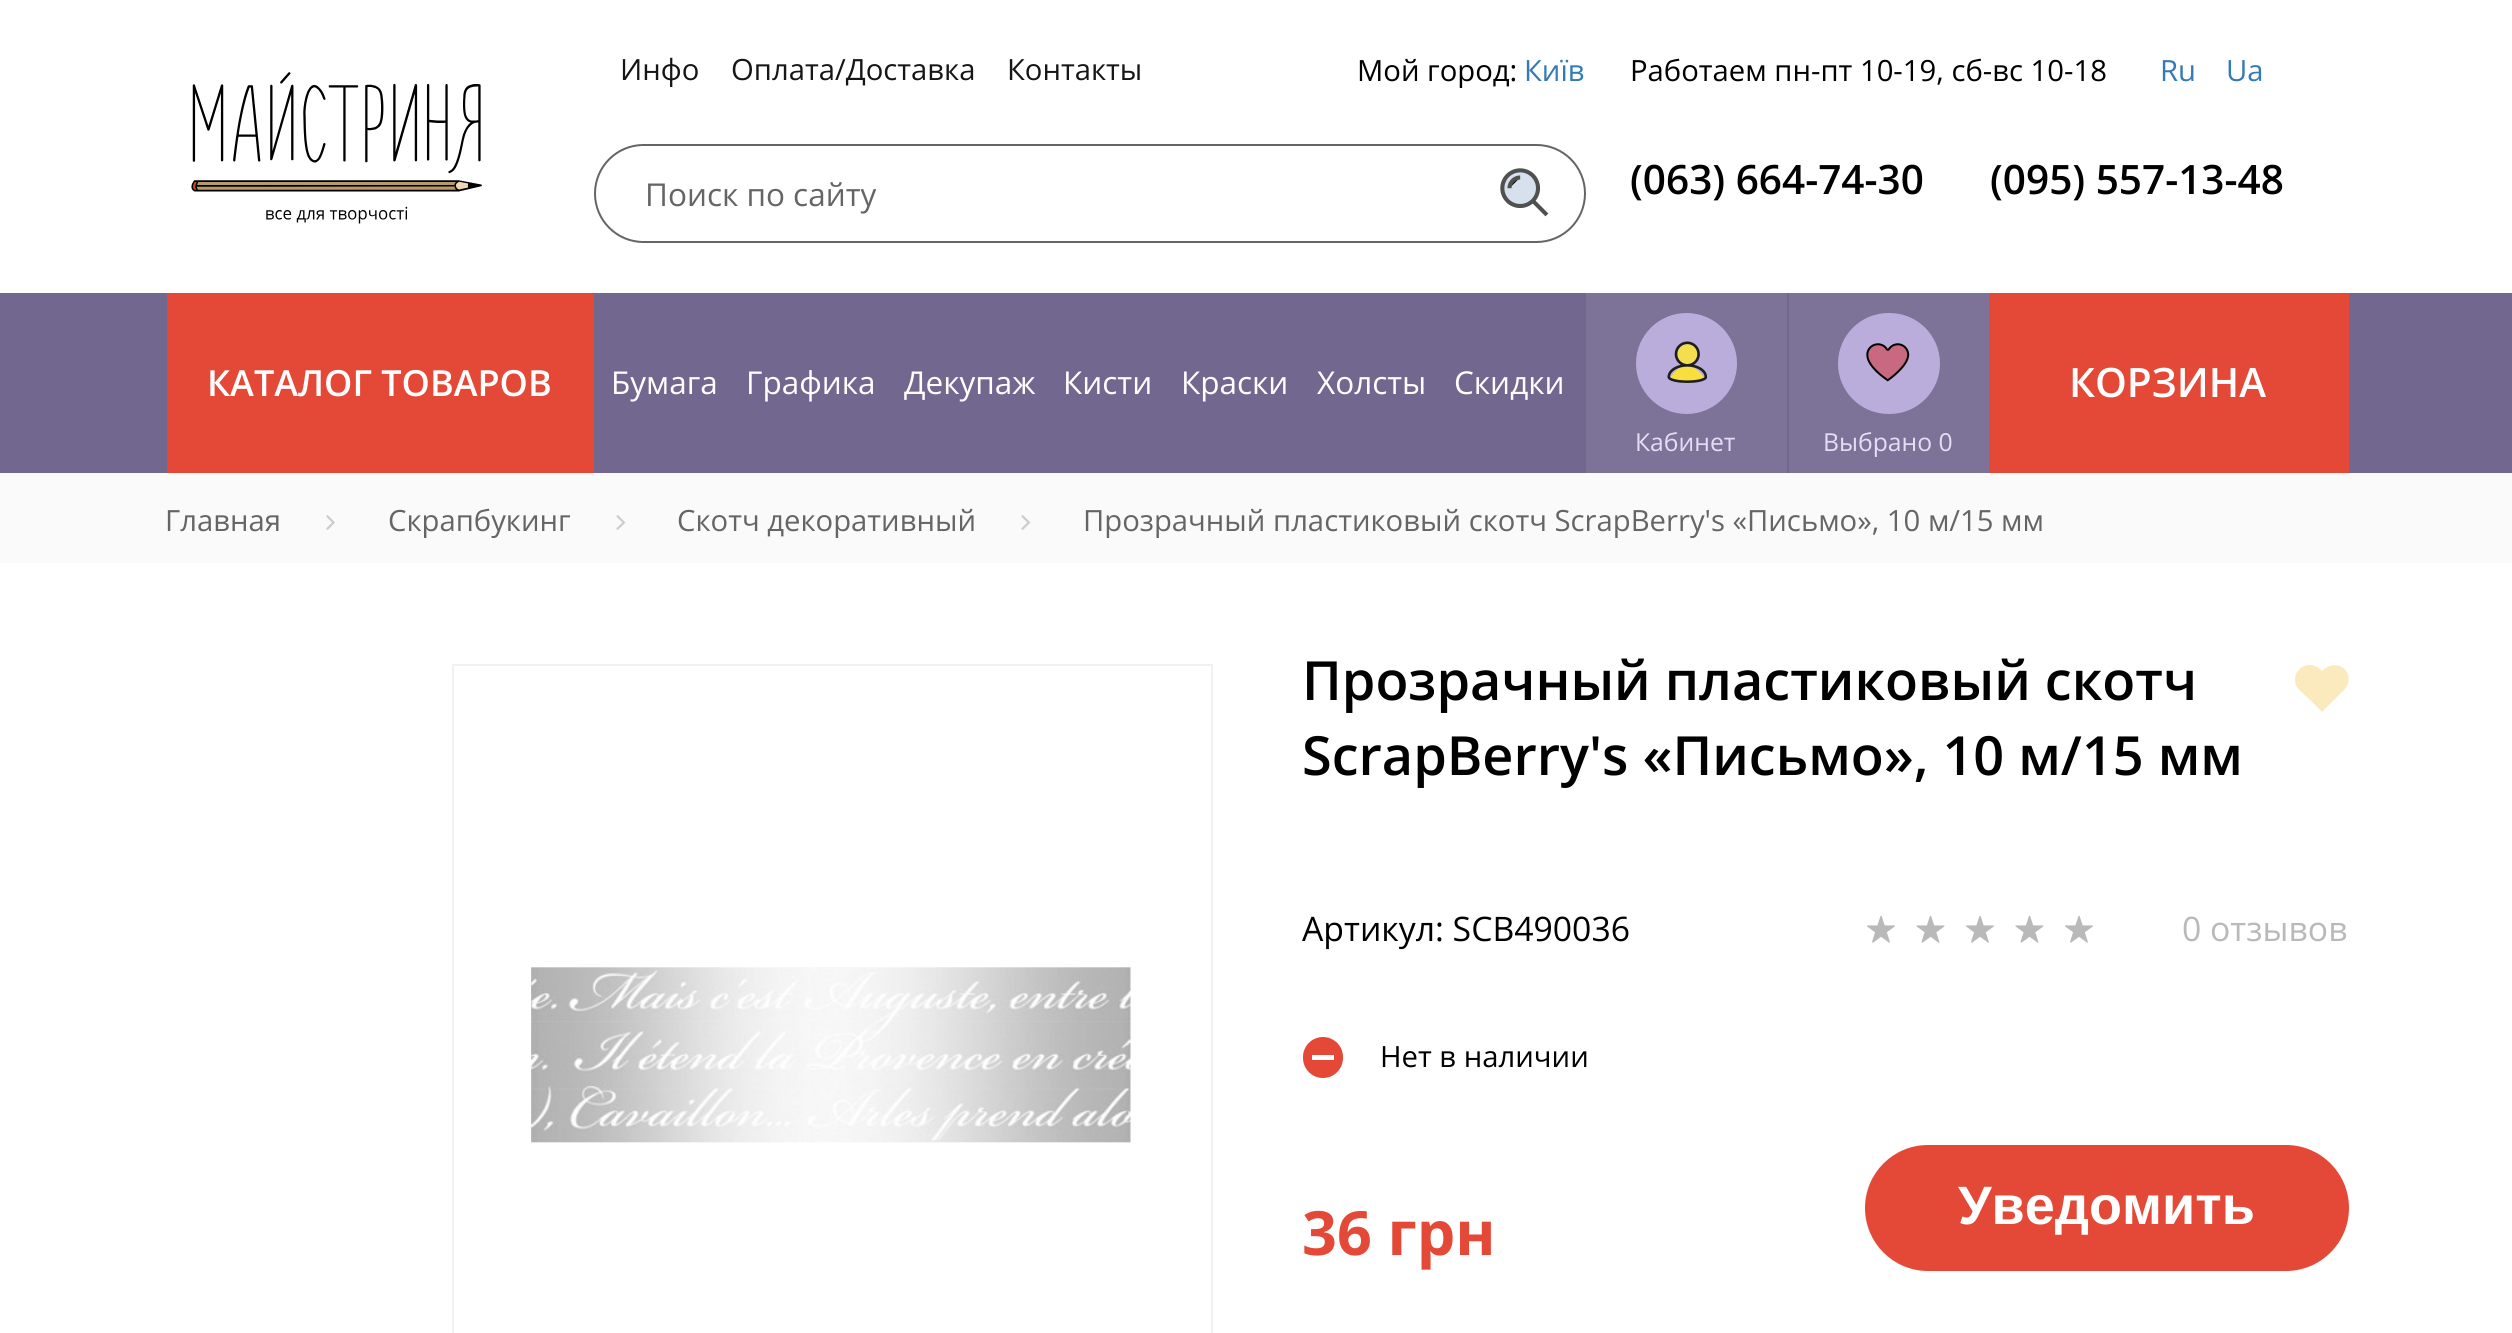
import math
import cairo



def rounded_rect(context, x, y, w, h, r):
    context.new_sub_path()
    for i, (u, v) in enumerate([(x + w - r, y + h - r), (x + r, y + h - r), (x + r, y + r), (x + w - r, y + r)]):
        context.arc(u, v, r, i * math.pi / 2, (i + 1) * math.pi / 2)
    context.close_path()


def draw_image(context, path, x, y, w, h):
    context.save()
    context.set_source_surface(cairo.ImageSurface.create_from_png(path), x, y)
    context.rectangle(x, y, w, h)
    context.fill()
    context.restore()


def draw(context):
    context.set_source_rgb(1, 1, 1)
    context.paint()
    draw_image(context, "images/1.png", 191, 72, 291, 152)
    rounded_rect(context, 595, 145, 990, 97, 48.5)
    context.set_source_rgb(101 / 255, 101 / 255, 101 / 255)
    context.stroke()
    context.set_source_rgb(1, 1, 1)
    context.rectangle(641, 146, 2, 95)
    context.fill()
    draw_image(context, "images/2.png", 1500, 168, 49, 49)
    context.set_source_rgb(114 / 255, 103 / 255, 143 / 255)
    context.rectangle(0, 293, 2512, 180)
    context.fill()
    context.set_source_rgb(228 / 255, 73 / 255, 55 / 255)
    context.rectangle(167, 293, 427, 180)
    context.fill()
    context.rectangle(1989, 293, 360, 180)
    context.fill()
    context.set_source_rgb(125 / 255, 115 / 255, 152 / 255)
    context.rectangle(1586, 293, 201, 180)
    context.fill()
    context.set_source_rgb(186 / 255, 173 / 255, 220 / 255)
    context.arc(1686.5, 363.5, 50.5, 0, 2 * math.pi)
    context.fill()
    draw_image(context, "images/3.png", 1667, 341, 41, 43)
    context.set_source_rgb(125 / 255, 115 / 255, 152 / 255)
    context.rectangle(1789, 293, 200, 180)
    context.fill()
    context.set_source_rgb(186 / 255, 173 / 255, 220 / 255)
    rounded_rect(context, 1838, 313, 102, 101, 50.5)
    context.fill()
    draw_image(context, "images/4.png", 1866, 343, 44, 39)
    context.set_source_rgb(250 / 255, 250 / 255, 250 / 255)
    context.rectangle(0, 473, 2512, 90)
    context.fill()
    draw_image(context, "images/5.png", 326, 515, 9, 15)
    draw_image(context, "images/6.png", 616, 515, 10, 15)
    draw_image(context, "images/6.png", 1021, 515, 10, 15)
    context.rectangle(453, 665, 759, 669)
    context.set_source_rgb(241 / 255, 241 / 255, 241 / 255)
    context.stroke()
    draw_image(context, "images/7.png", 531, 967, 600, 176)
    context.set_source_rgb(250 / 255, 234 / 255, 189 / 255)
    context.new_path()
    context.move_to(2343, 691)
    context.curve_to(2359, 675, 2338, 655, 2322, 671)
    context.curve_to(2320, 669, 2318, 667, 2315, 666)
    context.curve_to(2304, 661, 2291, 673, 2296, 685)
    context.curve_to(2298, 690, 2304, 694, 2308, 698)
    context.line_to(2322, 712)
    context.close_path()
    context.fill()
    draw_image(context, "images/8.png", 1867, 915, 28, 28)
    draw_image(context, "images/9.png", 1916, 915, 29, 28)
    draw_image(context, "images/8.png", 1966, 915, 28, 28)
    draw_image(context, "images/9.png", 2015, 915, 29, 28)
    draw_image(context, "images/8.png", 2065, 915, 28, 28)
    context.set_source_rgb(228 / 255, 73 / 255, 55 / 255)
    rounded_rect(context, 1303, 1037, 40, 41, 20)
    context.fill()
    context.set_source_rgb(1, 1, 1)
    context.rectangle(1312, 1055, 22, 5)
    context.fill()
    context.set_source_rgb(228 / 255, 73 / 255, 55 / 255)
    rounded_rect(context, 1865, 1145, 484, 126, 63)
    context.fill()
    context.select_font_face("Open Sans")
    context.set_font_size(29.25)
    context.set_source_rgb(22 / 255, 22 / 255, 22 / 255)
    context.move_to(620, 80)
    context.show_text("Инфо")
    context.move_to(731, 80)
    context.show_text("Оплата/Доставка")
    context.move_to(1007, 80)
    context.show_text("Контакты")
    context.set_source_rgb(0, 0, 0)
    context.move_to(1357, 81)
    context.show_text("Мой город:")
    context.set_source_rgb(51 / 255, 122 / 255, 183 / 255)
    context.move_to(1524, 81)
    context.show_text("Київ")
    context.set_font_size(31.5)
    context.set_source_rgb(101 / 255, 101 / 255, 101 / 255)
    context.move_to(645, 206)
    context.show_text("Поиск по сайту")
    context.set_font_size(29.25)
    context.set_source_rgb(0, 0, 0)
    context.move_to(1630, 81)
    context.show_text("Работаем пн-пт 10-19, сб-вс 10-18")
    context.set_source_rgb(51 / 255, 122 / 255, 183 / 255)
    context.move_to(2160, 81)
    context.show_text("Ru")
    context.move_to(2226, 81)
    context.show_text("Ua")
    context.select_font_face("Open Sans SemiBold")
    context.set_font_size(40.5)
    context.set_source_rgb(0, 0, 0)
    context.move_to(1630, 194)
    context.show_text("(063) 664-74-30")
    context.move_to(1990, 194)
    context.show_text("(095) 557-13-48")
    context.set_font_size(36)
    context.set_source_rgb(1, 1, 1)
    context.move_to(207, 396)
    context.show_text("КАТАЛОГ ТОВАРОВ")
    context.select_font_face("Open Sans")
    context.set_font_size(31.5)
    context.move_to(611, 394)
    context.show_text("Бумага")
    context.move_to(746, 394)
    context.show_text("Графика")
    context.move_to(904, 394)
    context.show_text("Декупаж")
    context.move_to(1063, 394)
    context.show_text("Кисти")
    context.move_to(1181, 394)
    context.show_text("Краски")
    context.move_to(1317, 394)
    context.show_text("Холсты")
    context.move_to(1454, 394)
    context.show_text("Скидки")
    context.select_font_face("Open Sans SemiBold")
    context.set_font_size(40.5)
    context.move_to(2069, 397)
    context.show_text("КОРЗИНА")
    context.select_font_face("Open Sans")
    context.set_font_size(24.75)
    context.set_source_rgb(228 / 255, 222 / 255, 245 / 255)
    context.move_to(1635, 451)
    context.show_text("Кабинет")
    context.move_to(1823, 451)
    context.show_text("Выбрано 0")
    context.set_font_size(29.25)
    context.set_source_rgb(101 / 255, 101 / 255, 101 / 255)
    context.move_to(165, 531)
    context.show_text("Главная")
    context.move_to(388, 531)
    context.show_text("Скрапбукинг")
    context.move_to(677, 531)
    context.show_text("Скотч декоративный")
    context.move_to(1083, 531)
    context.show_text("Прозрачный пластиковый скотч ScrapBerry's «Письмо», 10 м/15 мм")
    context.select_font_face("Open Sans SemiBold")
    context.set_font_size(54)
    context.set_source_rgb(0, 0, 0)
    context.move_to(1302, 700)
    context.show_text("Прозрачный пластиковый скотч")
    context.move_to(1302, 775)
    context.show_text("ScrapBerry's «Письмо», 10 м/15 мм")
    context.select_font_face("Open Sans")
    context.set_font_size(33.75)
    context.move_to(1302, 941)
    context.show_text("Артикул: SCB490036")
    context.set_source_rgb(185 / 255, 185 / 255, 185 / 255)
    context.move_to(2182, 941)
    context.show_text("0 отзывов")
    context.set_font_size(29.25)
    context.set_source_rgb(0, 0, 0)
    context.move_to(1380, 1067)
    context.show_text("Нет в наличии")
    context.select_font_face("Open Sans", cairo.FontSlant.NORMAL, cairo.FontWeight.BOLD)
    context.set_font_size(61)
    context.set_source_rgb(228 / 255, 73 / 255, 55 / 255)
    context.move_to(1302, 1255)
    context.show_text("36 грн")
    context.select_font_face("Liberation Sans", cairo.FontSlant.NORMAL, cairo.FontWeight.BOLD)
    context.set_font_size(54)
    context.set_source_rgb(1, 1, 1)
    context.move_to(1958, 1224)
    context.show_text("Уведомить")


surface = cairo.ImageSurface(cairo.Format.RGB24, 2512, 1333)
context = cairo.Context(surface)
options = cairo.FontOptions()
options.set_hint_metrics(cairo.HintMetrics.OFF)
options.set_hint_style(cairo.HintStyle.NONE)
context.set_font_options(options)
context.set_miter_limit(4)
draw(context)
surface.write_to_png("out.png")
